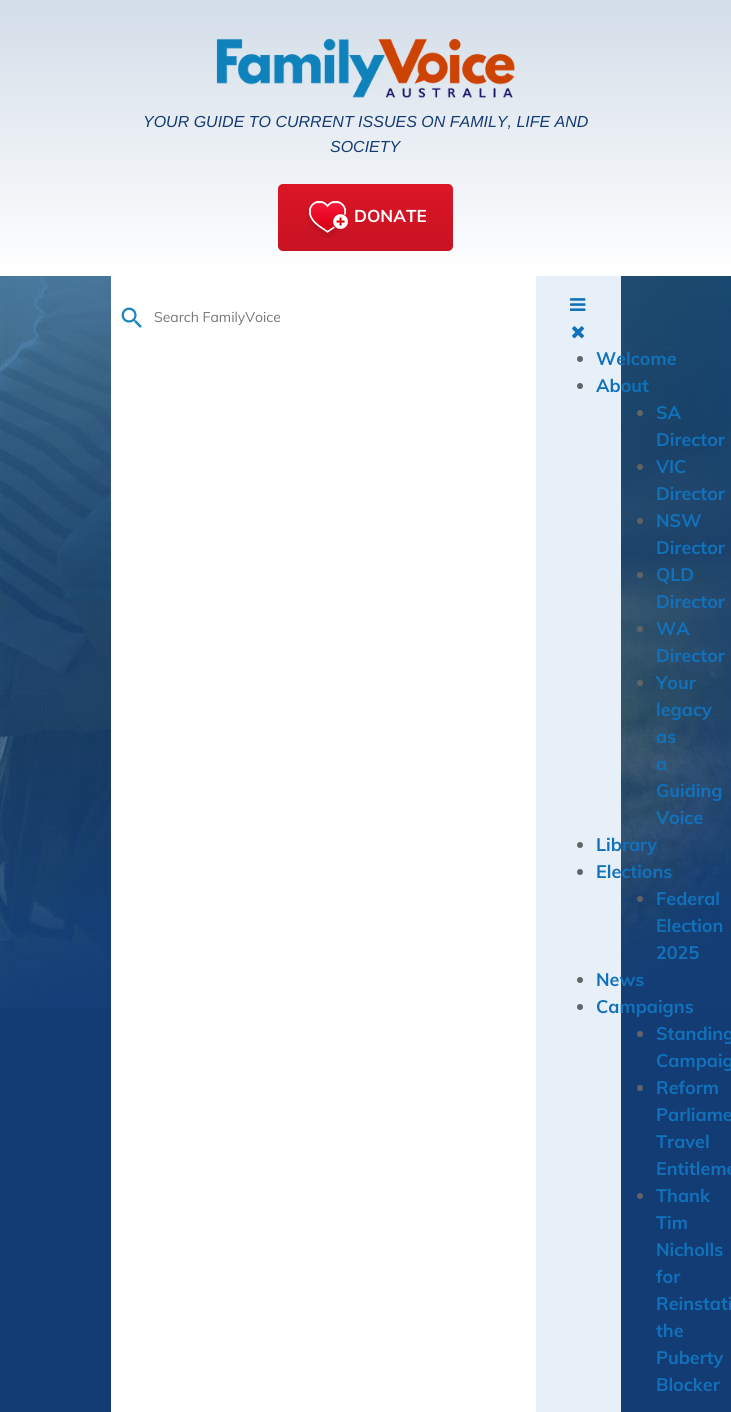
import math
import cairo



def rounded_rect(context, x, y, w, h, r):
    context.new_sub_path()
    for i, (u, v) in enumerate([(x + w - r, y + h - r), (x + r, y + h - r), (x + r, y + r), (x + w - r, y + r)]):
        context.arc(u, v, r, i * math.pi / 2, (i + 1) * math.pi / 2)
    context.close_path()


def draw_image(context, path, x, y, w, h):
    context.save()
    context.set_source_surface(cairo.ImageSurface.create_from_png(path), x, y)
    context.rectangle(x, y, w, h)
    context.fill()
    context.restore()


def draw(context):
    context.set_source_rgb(19 / 255, 60 / 255, 116 / 255)
    context.paint()
    draw_image(context, "images/1.png", 0, 276, 731, 732)
    gradient = cairo.LinearGradient(366, 0, 366, 276)
    gradient.add_color_stop_rgba(0, 211 / 255, 221 / 255, 232 / 255, 1)
    gradient.add_color_stop_rgba(1, 1, 1, 1, 1)
    context.set_source(gradient)
    context.rectangle(0, 0, 731, 276)
    context.fill()
    draw_image(context, "images/2.png", 216, 38, 299, 60)
    gradient = cairo.LinearGradient(366, 184, 366, 251)
    gradient.add_color_stop_rgba(0, 219 / 255, 21 / 255, 38 / 255, 1)
    gradient.add_color_stop_rgba(1, 200 / 255, 19 / 255, 35 / 255, 1)
    context.set_source(gradient)
    rounded_rect(context, 278, 184, 175, 67, 5)
    context.fill()
    draw_image(context, "images/3.png", 306, 201, 43, 38)
    context.set_source_rgb(231 / 255, 240 / 255, 248 / 255)
    context.rectangle(536, 276, 85, 1136)
    context.fill()
    context.set_source_rgb(1, 1, 1)
    context.rectangle(111, 276, 425, 1136)
    context.fill()
    draw_image(context, "images/4.png", 121, 307, 21, 21)
    draw_image(context, "images/5.png", 570, 298, 16, 13)
    draw_image(context, "images/6.png", 572, 326, 12, 13)
    context.set_source_rgb(98 / 255, 99 / 255, 102 / 255)
    context.arc(580, 359, 3, 0, 2 * math.pi)
    context.fill()
    context.arc(580, 386, 3, 0, 2 * math.pi)
    context.fill()
    context.arc(640, 413, 3, 0, 2 * math.pi)
    context.fill()
    context.arc(640, 467, 3, 0, 2 * math.pi)
    context.fill()
    context.arc(640, 521, 3, 0, 2 * math.pi)
    context.fill()
    context.arc(640, 575, 3, 0, 2 * math.pi)
    context.fill()
    context.arc(640, 629, 3, 0, 2 * math.pi)
    context.fill()
    context.arc(640, 683, 3, 0, 2 * math.pi)
    context.fill()
    context.arc(580, 845, 3, 0, 2 * math.pi)
    context.fill()
    context.arc(580, 872, 3, 0, 2 * math.pi)
    context.fill()
    context.arc(640, 899, 3, 0, 2 * math.pi)
    context.fill()
    context.arc(580, 980, 3, 0, 2 * math.pi)
    context.fill()
    context.arc(580, 1007, 3, 0, 2 * math.pi)
    context.fill()
    context.arc(640, 1034, 3, 0, 2 * math.pi)
    context.fill()
    context.arc(640, 1088, 3, 0, 2 * math.pi)
    context.fill()
    context.arc(640, 1196, 3, 0, 2 * math.pi)
    context.fill()
    context.select_font_face("Liberation Sans", cairo.FontSlant.ITALIC)
    context.set_font_size(16)
    context.set_source_rgb(19 / 255, 60 / 255, 116 / 255)
    context.move_to(143, 127)
    context.show_text("YOUR GUIDE TO CURRENT ISSUES ON FAMILY, LIFE AND")
    context.move_to(330, 152)
    context.show_text("SOCIETY")
    context.select_font_face("Muli", cairo.FontSlant.NORMAL, cairo.FontWeight.BOLD)
    context.set_font_size(17)
    context.set_source_rgb(1, 1, 1)
    context.move_to(354, 222)
    context.show_text("DONATE")
    context.select_font_face("Muli")
    context.set_font_size(14)
    context.set_source_rgb(117 / 255, 117 / 255, 117 / 255)
    context.move_to(154, 322)
    context.show_text("Search FamilyVoice")
    context.select_font_face("Muli", cairo.FontSlant.NORMAL, cairo.FontWeight.BOLD)
    context.set_font_size(18)
    context.set_source_rgb(17 / 255, 113 / 255, 187 / 255)
    context.move_to(596, 365)
    context.show_text("Welcome")
    context.move_to(596, 392)
    context.show_text("About")
    context.move_to(656, 419)
    context.show_text("SA")
    context.move_to(656, 446)
    context.show_text("Director")
    context.move_to(656, 473)
    context.show_text("VIC")
    context.move_to(656, 500)
    context.show_text("Director")
    context.move_to(656, 527)
    context.show_text("NSW")
    context.move_to(656, 554)
    context.show_text("Director")
    context.move_to(656, 581)
    context.show_text("QLD")
    context.move_to(656, 608)
    context.show_text("Director")
    context.move_to(656, 635)
    context.show_text("WA")
    context.move_to(656, 662)
    context.show_text("Director")
    context.move_to(656, 689)
    context.show_text("Your")
    context.move_to(656, 716)
    context.show_text("legacy")
    context.move_to(656, 743)
    context.show_text("as")
    context.move_to(656, 770)
    context.show_text("a")
    context.move_to(656, 797)
    context.show_text("Guiding")
    context.move_to(656, 824)
    context.show_text("Voice")
    context.move_to(596, 851)
    context.show_text("Library")
    context.move_to(596, 878)
    context.show_text("Elections")
    context.move_to(656, 905)
    context.show_text("Federal")
    context.move_to(656, 932)
    context.show_text("Election")
    context.move_to(656, 959)
    context.show_text("2025")
    context.move_to(596, 986)
    context.show_text("News")
    context.move_to(596, 1013)
    context.show_text("Campaigns")
    context.move_to(656, 1040)
    context.show_text("Standing")
    context.move_to(656, 1067)
    context.show_text("Campaig")
    context.move_to(656, 1094)
    context.show_text("Reform")
    context.move_to(656, 1121)
    context.show_text("Parliame")
    context.move_to(656, 1148)
    context.show_text("Travel")
    context.move_to(656, 1175)
    context.show_text("Entitleme")
    context.move_to(656, 1202)
    context.show_text("Thank")
    context.move_to(656, 1229)
    context.show_text("Tim")
    context.move_to(656, 1256)
    context.show_text("Nicholls")
    context.move_to(656, 1283)
    context.show_text("for")
    context.move_to(656, 1310)
    context.show_text("Reinstati")
    context.move_to(656, 1337)
    context.show_text("the")
    context.move_to(656, 1364)
    context.show_text("Puberty")
    context.move_to(656, 1391)
    context.show_text("Blocker")


surface = cairo.ImageSurface(cairo.Format.RGB24, 731, 1412)
context = cairo.Context(surface)
options = cairo.FontOptions()
options.set_hint_metrics(cairo.HintMetrics.OFF)
options.set_hint_style(cairo.HintStyle.NONE)
context.set_font_options(options)
context.set_miter_limit(4)
draw(context)
surface.write_to_png("out.png")
